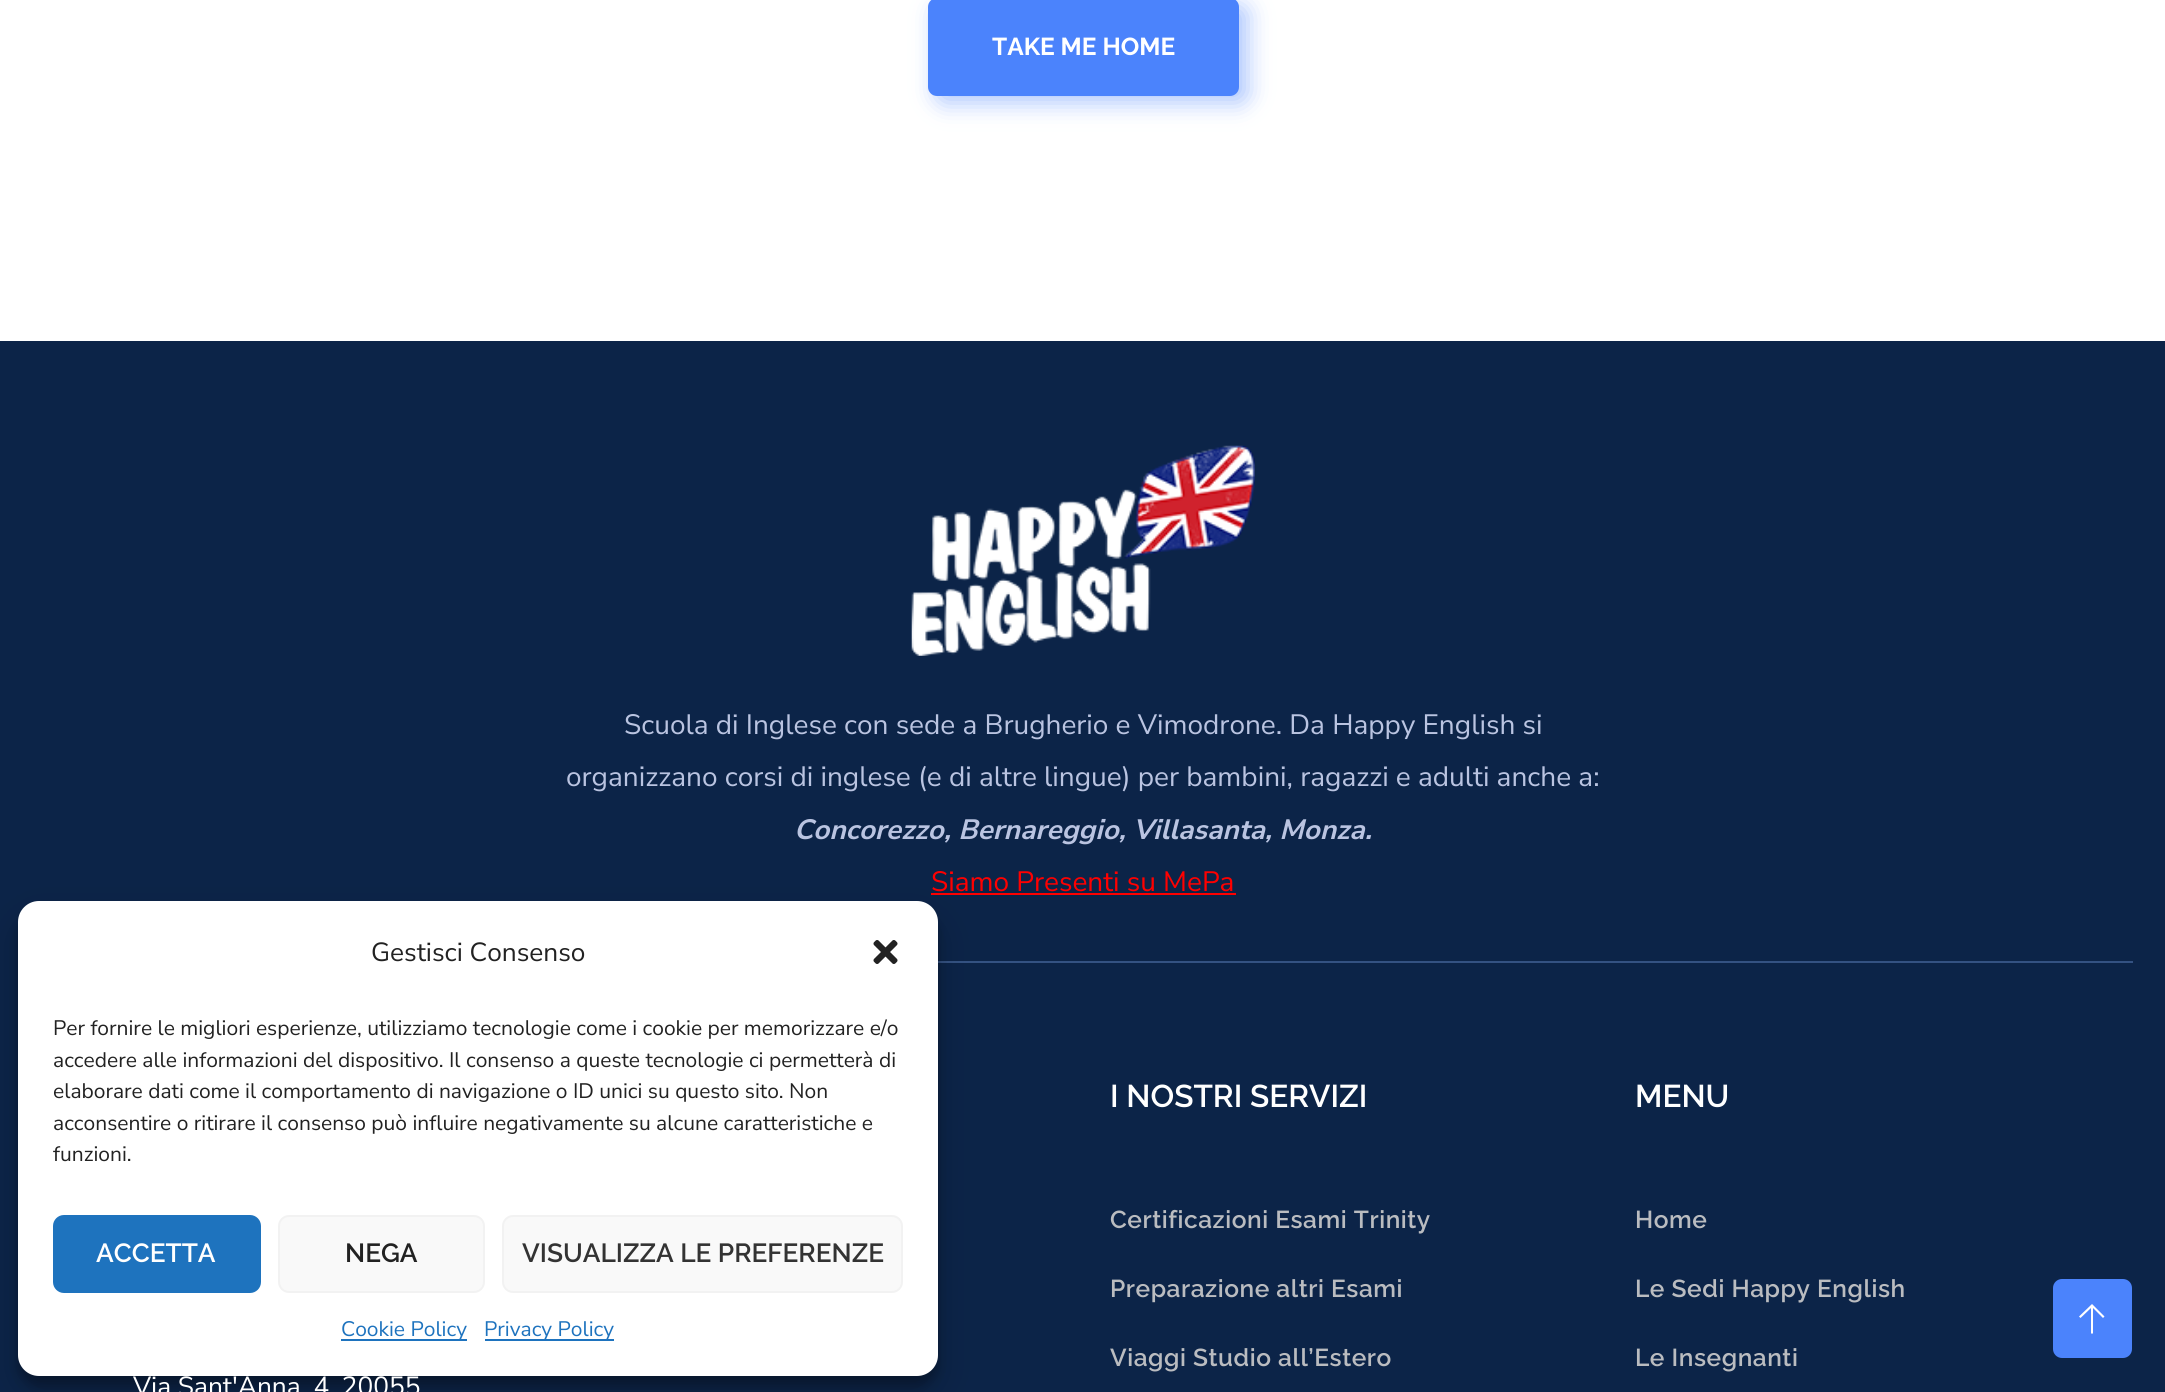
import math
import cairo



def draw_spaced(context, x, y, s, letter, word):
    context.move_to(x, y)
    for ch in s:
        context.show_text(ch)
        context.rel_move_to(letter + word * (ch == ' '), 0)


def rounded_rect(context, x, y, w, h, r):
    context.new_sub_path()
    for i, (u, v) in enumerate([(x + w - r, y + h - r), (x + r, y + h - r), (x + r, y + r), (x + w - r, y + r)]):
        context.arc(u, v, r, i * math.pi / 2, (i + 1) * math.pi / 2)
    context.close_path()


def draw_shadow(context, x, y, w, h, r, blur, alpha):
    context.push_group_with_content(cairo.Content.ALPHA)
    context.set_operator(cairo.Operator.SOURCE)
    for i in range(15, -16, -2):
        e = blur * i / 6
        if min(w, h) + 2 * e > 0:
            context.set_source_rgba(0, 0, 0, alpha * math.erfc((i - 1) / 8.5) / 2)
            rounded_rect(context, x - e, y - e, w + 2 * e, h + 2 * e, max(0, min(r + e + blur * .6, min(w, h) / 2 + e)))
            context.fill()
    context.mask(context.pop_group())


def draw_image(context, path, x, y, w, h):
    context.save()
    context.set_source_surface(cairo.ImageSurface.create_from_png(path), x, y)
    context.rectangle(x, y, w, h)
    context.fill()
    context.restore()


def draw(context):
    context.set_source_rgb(1, 1, 1)
    context.paint()
    context.set_source_rgb(75 / 255, 131 / 255, 252 / 255)
    draw_shadow(context, 936, 5, 312, 98, 9, 11.5, 0.45)
    context.set_source_rgb(75 / 255, 131 / 255, 252 / 255)
    rounded_rect(context, 928, -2, 311, 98, 9)
    context.fill()
    context.set_source_rgb(12 / 255, 36 / 255, 72 / 255)
    context.rectangle(0, 341, 2165, 1051)
    context.fill()
    draw_image(context, "images/1.png", 911, 445, 344, 211)
    context.set_source_rgb(1, 0, 0)
    context.rectangle(931, 893, 305, 2)
    context.fill()
    context.set_source_rgb(52 / 255, 82 / 255, 130 / 255)
    context.rectangle(938, 961, 1195, 2)
    context.fill()
    context.set_source_rgb(0, 0, 0)
    draw_shadow(context, 18, 912, 920, 474, 21, 5, 0.23)
    draw_shadow(context, 18, 919, 920, 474, 21, 17.5, 0.19)
    context.set_source_rgb(1, 1, 1)
    rounded_rect(context, 18, 901, 920, 475, 21)
    context.fill()
    draw_image(context, "images/2.png", 873, 940, 25, 24)
    context.set_source_rgb(30 / 255, 115 / 255, 190 / 255)
    rounded_rect(context, 54, 1216, 206, 76, 10)
    context.fill_preserve()
    context.stroke()
    context.set_source_rgb(249 / 255, 249 / 255, 249 / 255)
    rounded_rect(context, 279, 1216, 205, 76, 10)
    context.fill_preserve()
    context.set_source_rgb(242 / 255, 242 / 255, 242 / 255)
    context.stroke()
    context.set_source_rgb(249 / 255, 249 / 255, 249 / 255)
    rounded_rect(context, 503, 1216, 399, 76, 10)
    context.fill_preserve()
    context.set_source_rgb(242 / 255, 242 / 255, 242 / 255)
    context.stroke()
    context.set_source_rgb(30 / 255, 115 / 255, 190 / 255)
    context.rectangle(341, 1339, 126, 2)
    context.fill()
    context.rectangle(485, 1339, 129, 2)
    context.fill()
    context.set_source_rgb(75 / 255, 131 / 255, 252 / 255)
    rounded_rect(context, 2053, 1279, 79, 79, 9)
    context.fill()
    context.set_source_rgb(1, 1, 1)
    context.new_path()
    context.move_to(2104.5, 1316.5)
    context.line_to(2103, 1318)
    context.line_to(2093, 1308)
    context.line_to(2093, 1333.5)
    context.line_to(2091, 1333.5)
    context.line_to(2091, 1308)
    context.line_to(2080.5, 1318)
    context.line_to(2079, 1316.5)
    context.line_to(2092, 1304)
    context.close_path()
    context.fill()
    context.select_font_face("Raleway", cairo.FontSlant.NORMAL, cairo.FontWeight.BOLD)
    context.set_font_size(24.5)
    context.move_to(992, 55)
    context.show_text("TAKE ME HOME")
    context.select_font_face("Nunito Sans")
    context.set_font_size(28)
    context.set_source_rgb(186 / 255, 196 / 255, 225 / 255)
    context.move_to(624, 734)
    context.show_text("Scuola di Inglese con sede a Brugherio e Vimodrone. Da Happy English si")
    context.move_to(566, 786)
    context.show_text("organizzano corsi di inglese (e di altre lingue) per bambini, ragazzi e adulti anche a:")
    context.select_font_face("Nunito Sans", cairo.FontSlant.ITALIC, cairo.FontWeight.BOLD)
    context.move_to(794, 839)
    context.show_text("Concorezzo, Bernareggio, Villasanta, Monza.")
    context.select_font_face("Nunito Sans")
    context.set_source_rgb(1, 0, 0)
    context.move_to(931, 891)
    context.show_text("Siamo Presenti su MePa")
    context.select_font_face("Raleway SemiBold")
    context.set_font_size(31.5)
    context.set_source_rgb(1, 1, 1)
    context.move_to(1110, 1107)
    context.show_text("I NOSTRI SERVIZI")
    context.set_font_size(24.5)
    context.set_source_rgb(186 / 255, 188 / 255, 192 / 255)
    draw_spaced(context, 1110, 1228, "Certificazioni Esami Trinity", 0.55, 0)
    draw_spaced(context, 1110, 1297, "Preparazione altri Esami", 0.55, 0)
    draw_spaced(context, 1110, 1366, "Viaggi Studio all’Estero", 0.55, 0)
    context.set_font_size(31.5)
    context.set_source_rgb(1, 1, 1)
    context.move_to(1635, 1107)
    context.show_text("MENU")
    context.set_font_size(24.5)
    context.set_source_rgb(186 / 255, 188 / 255, 192 / 255)
    draw_spaced(context, 1635, 1228, "Home", 0.55, 0)
    draw_spaced(context, 1635, 1297, "Le Sedi Happy English", 0.55, 0)
    draw_spaced(context, 1635, 1366, "Le Insegnanti", 0.55, 0)
    context.select_font_face("Nunito Sans")
    context.set_font_size(26.25)
    context.set_source_rgb(1, 1, 1)
    context.move_to(133, 1395)
    context.show_text("Via Sant'Anna, 4, 20055")
    context.set_source_rgb(34 / 255, 34 / 255, 34 / 255)
    context.move_to(371, 961)
    context.show_text("Gestisci Consenso")
    context.set_font_size(21)
    context.move_to(53, 1035)
    context.show_text("Per fornire le migliori esperienze, utilizziamo tecnologie come i cookie per memorizzare e/o")
    context.move_to(53, 1067)
    context.show_text("accedere alle informazioni del dispositivo. Il consenso a queste tecnologie ci permetterà di")
    context.move_to(53, 1098)
    context.show_text("elaborare dati come il comportamento di navigazione o ID unici su questo sito. Non")
    context.move_to(53, 1130)
    context.show_text("acconsentire o ritirare il consenso può influire negativamente su alcune caratteristiche e")
    context.move_to(53, 1161)
    context.show_text("funzioni.")
    context.select_font_face("Raleway SemiBold")
    context.set_font_size(26.25)
    context.set_source_rgb(1, 1, 1)
    context.move_to(96, 1262)
    context.show_text("ACCETTA")
    context.set_source_rgb(34 / 255, 34 / 255, 34 / 255)
    context.move_to(345, 1262)
    context.show_text("NEGA")
    context.set_source_rgb(51 / 255, 51 / 255, 51 / 255)
    context.move_to(522, 1262)
    context.show_text("VISUALIZZA LE PREFERENZE")
    context.select_font_face("Nunito Sans")
    context.set_font_size(21)
    context.set_source_rgb(30 / 255, 115 / 255, 190 / 255)
    context.move_to(341, 1336)
    context.show_text("Cookie Policy")
    context.move_to(484, 1336)
    context.show_text("Privacy Policy")


surface = cairo.ImageSurface(cairo.Format.RGB24, 2165, 1392)
context = cairo.Context(surface)
options = cairo.FontOptions()
options.set_hint_metrics(cairo.HintMetrics.OFF)
options.set_hint_style(cairo.HintStyle.NONE)
context.set_font_options(options)
context.set_miter_limit(4)
draw(context)
surface.write_to_png("out.png")
